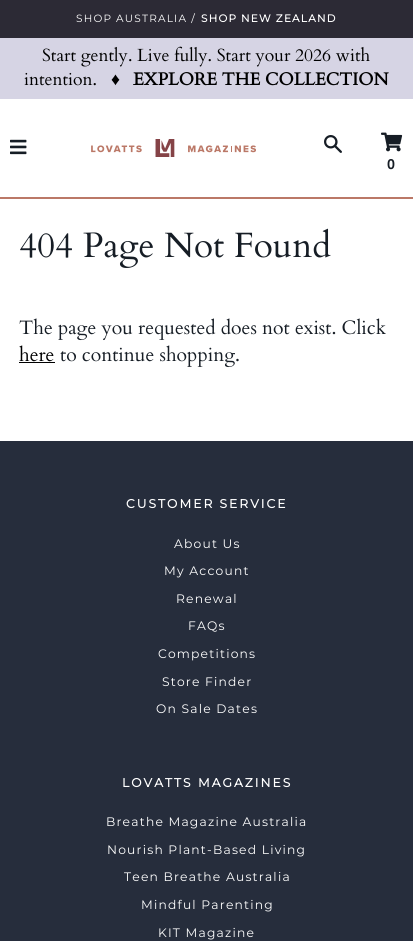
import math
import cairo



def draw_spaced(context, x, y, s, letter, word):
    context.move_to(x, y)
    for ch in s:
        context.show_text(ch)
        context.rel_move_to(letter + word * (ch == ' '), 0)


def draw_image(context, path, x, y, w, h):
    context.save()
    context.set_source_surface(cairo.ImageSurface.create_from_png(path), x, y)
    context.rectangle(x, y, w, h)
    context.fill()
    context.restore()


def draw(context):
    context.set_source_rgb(1, 1, 1)
    context.paint()
    context.set_source_rgb(44 / 255, 42 / 255, 53 / 255)
    context.rectangle(0, 0, 413, 38)
    context.fill()
    context.set_source_rgb(214 / 255, 212 / 255, 228 / 255)
    context.rectangle(0, 38, 413, 61)
    context.fill()
    context.set_source_rgb(187 / 255, 120 / 255, 103 / 255)
    context.rectangle(0, 197, 413, 2)
    context.fill()
    draw_image(context, "images/1.png", 10, 139, 17, 16)
    draw_image(context, "images/2.png", 91, 139, 165, 18)
    draw_image(context, "images/3.png", 324, 135, 18, 18)
    draw_image(context, "images/4.png", 381, 132, 22, 20)
    context.set_source_rgb(0, 0, 0)
    context.rectangle(19, 362, 36, 1)
    context.fill()
    context.set_source_rgb(38 / 255, 45 / 255, 60 / 255)
    context.rectangle(0, 441, 413, 500)
    context.fill()
    context.select_font_face("Montserrat Thin")
    context.set_font_size(10.5)
    context.set_source_rgb(1, 1, 1)
    draw_spaced(context, 76, 22, "SHOP AUSTRALIA /", 1.2, 0)
    context.select_font_face("Montserrat", cairo.FontSlant.NORMAL, cairo.FontWeight.BOLD)
    draw_spaced(context, 201, 22, "SHOP NEW ZEALAND", 1.2, 0)
    context.select_font_face("Cardo")
    context.set_font_size(17.6)
    context.set_source_rgb(0, 0, 0)
    context.move_to(42, 61)
    context.show_text("Start gently. Live fully. Start your 2026 with")
    context.move_to(24, 85)
    context.show_text("intention.")
    context.select_font_face("Liberation Serif")
    context.move_to(111, 85)
    context.show_text("♦")
    context.select_font_face("Cardo", cairo.FontSlant.NORMAL, cairo.FontWeight.BOLD)
    context.move_to(133, 85)
    context.show_text("EXPLORE THE COLLECTION")
    context.select_font_face("PT Sans", cairo.FontSlant.NORMAL, cairo.FontWeight.BOLD)
    context.set_font_size(14)
    context.set_source_rgb(22 / 255, 29 / 255, 37 / 255)
    draw_spaced(context, 387, 169, "0", 1, 0)
    context.select_font_face("Cardo")
    context.set_font_size(35.25)
    context.move_to(19, 257)
    context.show_text("404 Page Not Found")
    context.set_font_size(19.4)
    context.move_to(19, 334)
    context.show_text("The page you requested does not exist. Click")
    context.set_source_rgb(0, 0, 0)
    context.move_to(19, 361)
    context.show_text("here")
    context.set_source_rgb(22 / 255, 29 / 255, 37 / 255)
    context.move_to(60, 361)
    context.show_text("to continue shopping.")
    context.select_font_face("Montserrat", cairo.FontSlant.NORMAL, cairo.FontWeight.BOLD)
    context.set_font_size(12.3)
    context.set_source_rgb(1, 1, 1)
    draw_spaced(context, 126, 508, "CUSTOMER SERVICE", 2, 0)
    context.select_font_face("Montserrat Thin")
    draw_spaced(context, 174, 548, "About Us", 1.2, 0)
    draw_spaced(context, 164, 575, "My Account", 1.2, 0)
    draw_spaced(context, 176, 603, "Renewal", 1.2, 0)
    draw_spaced(context, 188, 630, "FAQs", 1.2, 0)
    draw_spaced(context, 158, 658, "Competitions", 1.2, 0)
    draw_spaced(context, 162, 686, "Store Finder", 1.2, 0)
    draw_spaced(context, 156, 713, "On Sale Dates", 1.2, 0)
    context.select_font_face("Montserrat", cairo.FontSlant.NORMAL, cairo.FontWeight.BOLD)
    draw_spaced(context, 122, 787, "LOVATTS MAGAZINES", 2, 0)
    context.select_font_face("Montserrat Thin")
    draw_spaced(context, 106, 826, "Breathe Magazine Australia", 1.2, 0)
    draw_spaced(context, 107, 854, "Nourish Plant-Based Living", 1.2, 0)
    draw_spaced(context, 124, 881, "Teen Breathe Australia", 1.2, 0)
    draw_spaced(context, 141, 909, "Mindful Parenting", 1.2, 0)
    draw_spaced(context, 158, 937, "KIT Magazine", 1.2, 0)


surface = cairo.ImageSurface(cairo.Format.RGB24, 413, 941)
context = cairo.Context(surface)
options = cairo.FontOptions()
options.set_hint_metrics(cairo.HintMetrics.OFF)
options.set_hint_style(cairo.HintStyle.NONE)
context.set_font_options(options)
context.set_miter_limit(4)
draw(context)
surface.write_to_png("out.png")
